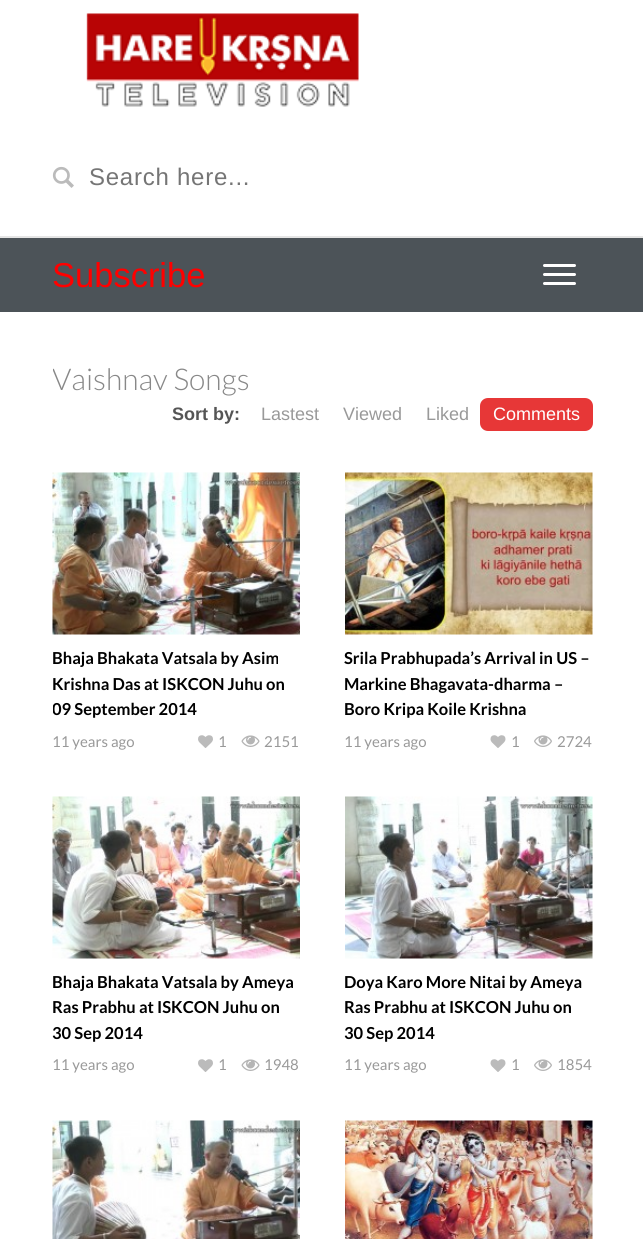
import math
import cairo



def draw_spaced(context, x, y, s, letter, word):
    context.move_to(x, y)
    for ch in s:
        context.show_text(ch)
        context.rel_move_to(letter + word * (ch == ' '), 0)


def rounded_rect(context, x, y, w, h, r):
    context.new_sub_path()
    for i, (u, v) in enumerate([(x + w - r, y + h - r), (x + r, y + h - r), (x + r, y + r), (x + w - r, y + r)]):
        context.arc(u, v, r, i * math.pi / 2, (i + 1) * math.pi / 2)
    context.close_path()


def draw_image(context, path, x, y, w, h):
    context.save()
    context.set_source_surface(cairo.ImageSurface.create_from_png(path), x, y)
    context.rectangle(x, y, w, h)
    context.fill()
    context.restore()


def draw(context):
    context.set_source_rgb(1, 1, 1)
    context.paint()
    context.set_source_rgb(229 / 255, 229 / 255, 229 / 255)
    context.rectangle(0, 236, 643, 2)
    context.fill()
    draw_image(context, "images/1.png", 86, 13, 273, 94)
    draw_image(context, "images/2.png", 52, 166, 22, 22)
    context.set_source_rgb(76 / 255, 83 / 255, 88 / 255)
    context.rectangle(0, 238, 643, 74)
    context.fill()
    context.set_source_rgb(1, 1, 1)
    rounded_rect(context, 543, 264, 33, 3, 1.5)
    context.fill()
    rounded_rect(context, 543, 273, 33, 3, 1.5)
    context.fill()
    rounded_rect(context, 543, 282, 33, 3, 1.5)
    context.fill()
    context.set_source_rgb(231 / 255, 55 / 255, 55 / 255)
    rounded_rect(context, 480, 398, 113, 33, 8)
    context.fill()
    draw_image(context, "images/3.png", 52, 472, 248, 163)
    draw_image(context, "images/4.png", 198, 735, 15, 13)
    draw_image(context, "images/5.png", 241, 735, 19, 12)
    draw_image(context, "images/6.png", 345, 472, 248, 163)
    draw_image(context, "images/7.png", 490, 735, 16, 13)
    draw_image(context, "images/8.png", 534, 735, 18, 12)
    draw_image(context, "images/9.png", 52, 796, 248, 163)
    draw_image(context, "images/4.png", 198, 1059, 15, 13)
    draw_image(context, "images/5.png", 241, 1059, 19, 12)
    draw_image(context, "images/10.png", 345, 796, 248, 163)
    draw_image(context, "images/7.png", 490, 1059, 16, 13)
    draw_image(context, "images/8.png", 534, 1059, 18, 12)
    draw_image(context, "images/11.png", 52, 1120, 248, 119)
    draw_image(context, "images/12.png", 345, 1120, 248, 119)
    context.select_font_face("Liberation Sans")
    context.set_font_size(24)
    context.set_source_rgb(117 / 255, 117 / 255, 117 / 255)
    draw_spaced(context, 89, 185, "Search here...", 0.75, 0)
    context.set_font_size(34.5)
    context.set_source_rgb(1, 0, 0)
    context.move_to(52, 287)
    context.show_text("Subscribe")
    context.save()
    context.rectangle(53, 357, 540, 86)
    context.clip()
    context.select_font_face("Lato Light")
    context.set_font_size(30)
    context.set_source_rgb(136 / 255, 136 / 255, 136 / 255)
    context.move_to(52, 390)
    context.show_text("Vaishnav Songs")
    context.restore()
    context.select_font_face("Liberation Sans", cairo.FontSlant.NORMAL, cairo.FontWeight.BOLD)
    context.set_font_size(18)
    context.set_source_rgb(85 / 255, 85 / 255, 85 / 255)
    context.move_to(172, 420)
    context.show_text("Sort by:")
    context.select_font_face("Liberation Sans")
    context.set_source_rgb(153 / 255, 153 / 255, 153 / 255)
    context.move_to(261, 420)
    context.show_text("Lastest")
    context.move_to(343, 420)
    context.show_text("Viewed")
    context.move_to(426, 420)
    context.show_text("Liked")
    context.set_source_rgb(1, 1, 1)
    context.move_to(493, 420)
    context.show_text("Comments")
    context.select_font_face("Lato", cairo.FontSlant.NORMAL, cairo.FontWeight.BOLD)
    context.set_font_size(16.5)
    context.set_source_rgb(0, 0, 0)
    context.move_to(52, 664)
    context.show_text("Bhaja Bhakata Vatsala by Asim")
    context.move_to(52, 690)
    context.show_text("Krishna Das at ISKCON Juhu on")
    context.save()
    context.rectangle(53, 642, 247, 83)
    context.clip()
    context.move_to(52, 715)
    context.show_text("09 September 2014")
    context.restore()
    context.select_font_face("Lato")
    context.set_font_size(15)
    context.set_source_rgb(153 / 255, 153 / 255, 153 / 255)
    context.move_to(52, 747)
    context.show_text("11 years ago")
    context.move_to(218, 747)
    context.show_text("1")
    context.move_to(264, 747)
    context.show_text("2151")
    context.select_font_face("Lato", cairo.FontSlant.NORMAL, cairo.FontWeight.BOLD)
    context.set_font_size(16.5)
    context.set_source_rgb(0, 0, 0)
    context.move_to(344, 664)
    context.show_text("Srila Prabhupada’s Arrival in US –")
    context.move_to(344, 690)
    context.show_text("Markine Bhagavata-dharma –")
    context.move_to(344, 715)
    context.show_text("Boro Kripa Koile Krishna")
    context.select_font_face("Lato")
    context.set_font_size(15)
    context.set_source_rgb(153 / 255, 153 / 255, 153 / 255)
    context.move_to(344, 747)
    context.show_text("11 years ago")
    context.move_to(511, 747)
    context.show_text("1")
    context.move_to(557, 747)
    context.show_text("2724")
    context.select_font_face("Lato", cairo.FontSlant.NORMAL, cairo.FontWeight.BOLD)
    context.set_font_size(16.5)
    context.set_source_rgb(0, 0, 0)
    context.move_to(52, 988)
    context.show_text("Bhaja Bhakata Vatsala by Ameya")
    context.move_to(52, 1013)
    context.show_text("Ras Prabhu at ISKCON Juhu on")
    context.move_to(52, 1039)
    context.show_text("30 Sep 2014")
    context.select_font_face("Lato")
    context.set_font_size(15)
    context.set_source_rgb(153 / 255, 153 / 255, 153 / 255)
    context.move_to(52, 1070)
    context.show_text("11 years ago")
    context.move_to(218, 1070)
    context.show_text("1")
    context.move_to(264, 1070)
    context.show_text("1948")
    context.select_font_face("Lato", cairo.FontSlant.NORMAL, cairo.FontWeight.BOLD)
    context.set_font_size(16.5)
    context.set_source_rgb(0, 0, 0)
    context.move_to(344, 988)
    context.show_text("Doya Karo More Nitai by Ameya")
    context.move_to(344, 1013)
    context.show_text("Ras Prabhu at ISKCON Juhu on")
    context.move_to(344, 1039)
    context.show_text("30 Sep 2014")
    context.select_font_face("Lato")
    context.set_font_size(15)
    context.set_source_rgb(153 / 255, 153 / 255, 153 / 255)
    context.move_to(344, 1070)
    context.show_text("11 years ago")
    context.move_to(511, 1070)
    context.show_text("1")
    context.move_to(557, 1070)
    context.show_text("1854")


surface = cairo.ImageSurface(cairo.Format.RGB24, 643, 1239)
context = cairo.Context(surface)
options = cairo.FontOptions()
options.set_hint_metrics(cairo.HintMetrics.OFF)
options.set_hint_style(cairo.HintStyle.NONE)
context.set_font_options(options)
context.set_miter_limit(4)
draw(context)
surface.write_to_png("out.png")
